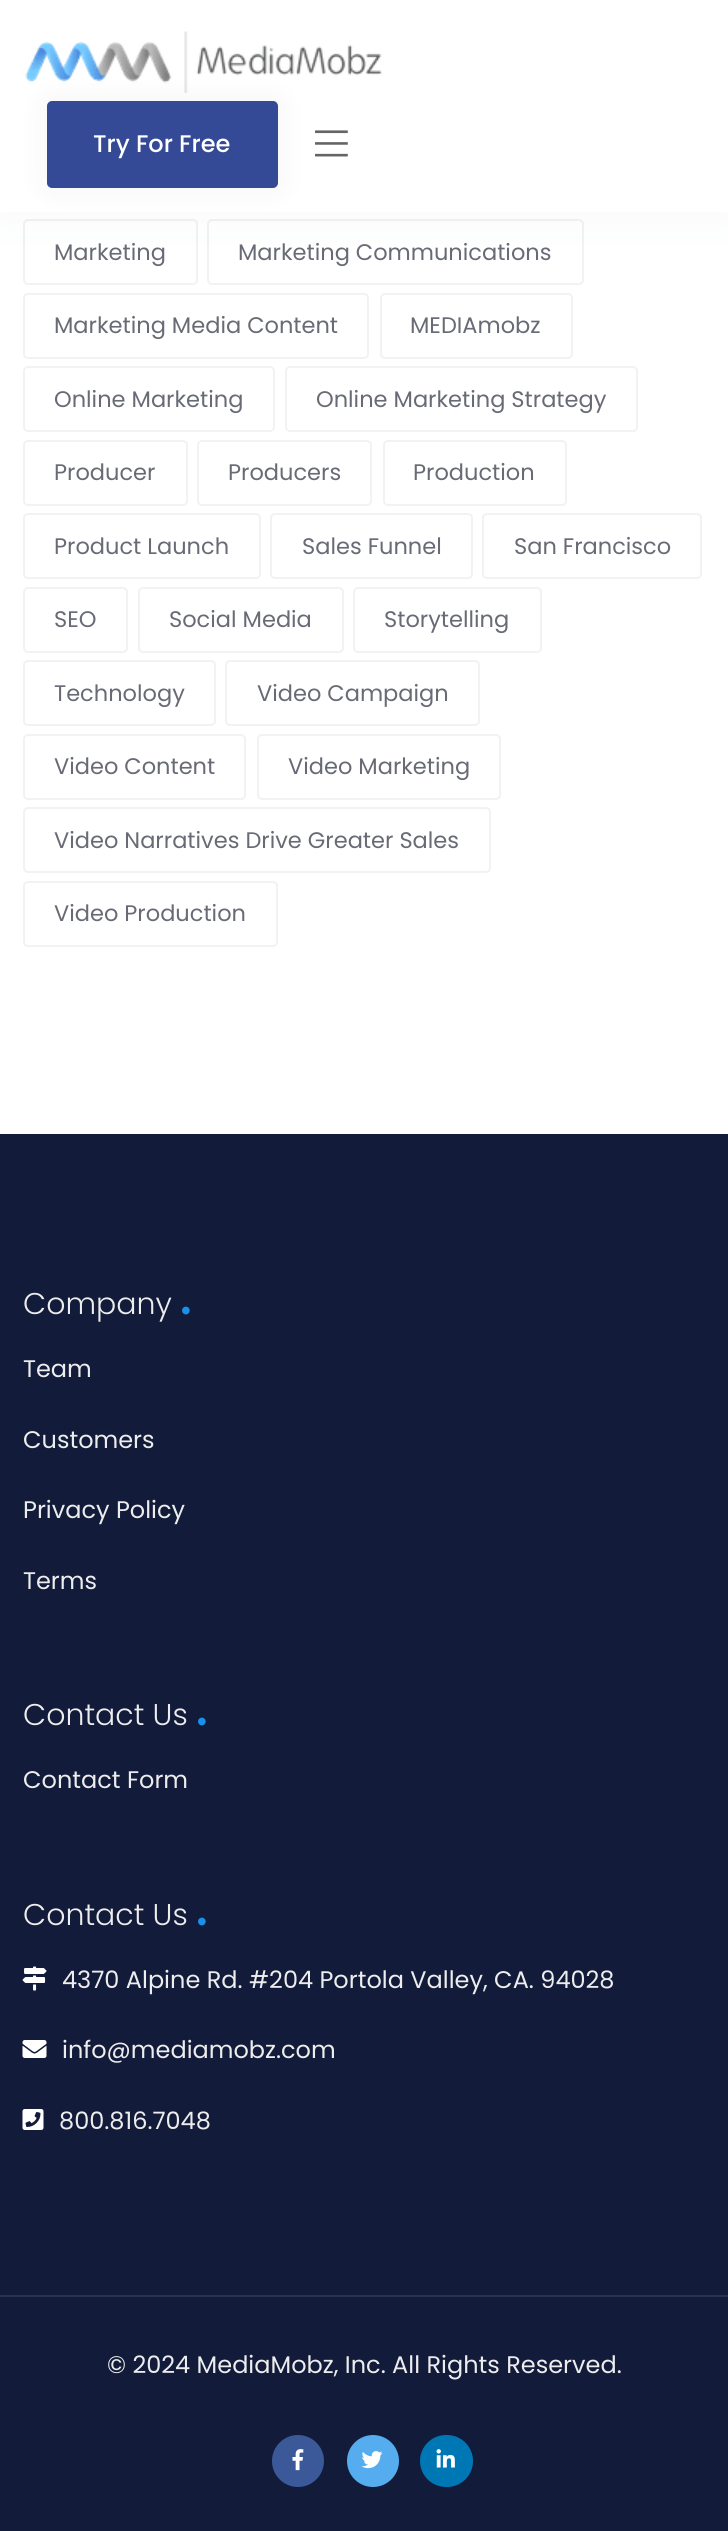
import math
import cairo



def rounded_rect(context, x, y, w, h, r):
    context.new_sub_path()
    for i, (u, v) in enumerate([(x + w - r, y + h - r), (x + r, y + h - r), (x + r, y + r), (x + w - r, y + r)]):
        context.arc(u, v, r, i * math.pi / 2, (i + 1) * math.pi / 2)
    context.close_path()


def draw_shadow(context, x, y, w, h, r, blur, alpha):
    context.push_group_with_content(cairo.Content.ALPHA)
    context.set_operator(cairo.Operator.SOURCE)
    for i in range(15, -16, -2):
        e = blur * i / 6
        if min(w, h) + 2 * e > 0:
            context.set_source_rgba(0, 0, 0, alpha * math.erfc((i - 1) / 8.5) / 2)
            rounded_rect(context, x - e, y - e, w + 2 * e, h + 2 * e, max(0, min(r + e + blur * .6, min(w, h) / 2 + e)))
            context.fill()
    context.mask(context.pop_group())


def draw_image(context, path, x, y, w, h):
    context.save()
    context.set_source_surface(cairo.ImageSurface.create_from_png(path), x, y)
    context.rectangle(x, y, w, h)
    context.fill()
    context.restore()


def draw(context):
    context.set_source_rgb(1, 1, 1)
    context.paint()
    rounded_rect(context, 24, 220, 173, 64, 4)
    context.set_source_rgb(242 / 255, 242 / 255, 242 / 255)
    context.stroke()
    rounded_rect(context, 208, 220, 375, 64, 4)
    context.stroke()
    context.set_source_rgb(51 / 255, 77 / 255, 136 / 255)
    draw_shadow(context, 0, 0, 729, 212, 0, 22.5, 0.05)
    context.set_source_rgb(1, 1, 1)
    context.rectangle(0, 0, 728, 212)
    context.fill()
    draw_image(context, "images/1.png", 25, 31, 357, 62)
    context.set_source_rgb(0, 0, 0)
    draw_shadow(context, 47, 101, 231, 87, 5, 15, 0.05)
    context.set_source_rgb(53 / 255, 74 / 255, 151 / 255)
    rounded_rect(context, 48, 102, 229, 85, 4)
    context.fill_preserve()
    context.stroke()
    draw_image(context, "images/2.png", 315, 130, 33, 27)
    rounded_rect(context, 24, 294, 344, 64, 4)
    context.set_source_rgb(242 / 255, 242 / 255, 242 / 255)
    context.stroke()
    rounded_rect(context, 381, 294, 191, 64, 4)
    context.stroke()
    rounded_rect(context, 24, 367, 250, 64, 4)
    context.stroke()
    rounded_rect(context, 286, 367, 351, 64, 4)
    context.stroke()
    rounded_rect(context, 24, 441, 163, 64, 4)
    context.stroke()
    rounded_rect(context, 198, 441, 173, 64, 4)
    context.stroke()
    rounded_rect(context, 384, 441, 182, 64, 4)
    context.stroke()
    rounded_rect(context, 24, 514, 236, 64, 4)
    context.stroke()
    rounded_rect(context, 271, 514, 201, 64, 4)
    context.stroke()
    rounded_rect(context, 483, 514, 218, 64, 4)
    context.stroke()
    rounded_rect(context, 24, 588, 103, 64, 4)
    context.stroke()
    rounded_rect(context, 139, 588, 204, 64, 4)
    context.stroke()
    rounded_rect(context, 354, 588, 187, 64, 4)
    context.stroke()
    rounded_rect(context, 24, 661, 191, 64, 4)
    context.stroke()
    rounded_rect(context, 226, 661, 253, 64, 4)
    context.stroke()
    rounded_rect(context, 24, 735, 221, 64, 4)
    context.stroke()
    rounded_rect(context, 258, 735, 242, 64, 4)
    context.stroke()
    rounded_rect(context, 24, 808, 466, 64, 4)
    context.stroke()
    rounded_rect(context, 24, 882, 253, 64, 4)
    context.stroke()
    context.set_source_rgb(18 / 255, 27 / 255, 58 / 255)
    context.rectangle(0, 1134, 728, 1397)
    context.fill()
    draw_image(context, "images/3.png", 22, 1966, 25, 25)
    draw_image(context, "images/4.png", 22, 2040, 25, 18)
    draw_image(context, "images/5.png", 22, 2109, 22, 21)
    context.set_source_rgb(42 / 255, 50 / 255, 78 / 255)
    context.rectangle(0, 2295, 728, 2)
    context.fill()
    context.set_source_rgb(59 / 255, 89 / 255, 153 / 255)
    context.arc(298, 2461, 26, 0, 2 * math.pi)
    context.fill()
    draw_image(context, "images/6.png", 292, 2449, 12, 22)
    context.set_source_rgb(85 / 255, 172 / 255, 238 / 255)
    context.arc(373, 2461, 26, 0, 2 * math.pi)
    context.fill()
    draw_image(context, "images/7.png", 361, 2451, 22, 18)
    context.set_source_rgb(0, 119 / 255, 181 / 255)
    rounded_rect(context, 420, 2435, 53, 52, 26)
    context.fill()
    draw_image(context, "images/8.png", 436, 2449, 19, 19)
    context.select_font_face("Poppins Medium")
    context.set_font_size(24)
    context.set_source_rgb(1, 1, 1)
    context.move_to(93, 152)
    context.show_text("Try For Free")
    context.select_font_face("Poppins")
    context.set_font_size(22.5)
    context.set_source_rgb(104 / 255, 107 / 255, 117 / 255)
    context.move_to(54, 260)
    context.show_text("Marketing")
    context.move_to(238, 260)
    context.show_text("Marketing Communications")
    context.move_to(54, 333)
    context.show_text("Marketing Media Content")
    context.move_to(410, 333)
    context.show_text("MEDIAmobz")
    context.move_to(54, 407)
    context.show_text("Online Marketing")
    context.move_to(316, 407)
    context.show_text("Online Marketing Strategy")
    context.move_to(54, 480)
    context.show_text("Producer")
    context.move_to(228, 480)
    context.show_text("Producers")
    context.move_to(413, 480)
    context.show_text("Production")
    context.move_to(54, 554)
    context.show_text("Product Launch")
    context.move_to(302, 554)
    context.show_text("Sales Funnel")
    context.move_to(514, 554)
    context.show_text("San Francisco")
    context.move_to(54, 627)
    context.show_text("SEO")
    context.move_to(169, 627)
    context.show_text("Social Media")
    context.move_to(384, 627)
    context.show_text("Storytelling")
    context.move_to(54, 701)
    context.show_text("Technology")
    context.move_to(257, 701)
    context.show_text("Video Campaign")
    context.move_to(54, 774)
    context.show_text("Video Content")
    context.move_to(288, 774)
    context.show_text("Video Marketing")
    context.move_to(54, 848)
    context.show_text("Video Narratives Drive Greater Sales")
    context.move_to(54, 921)
    context.show_text("Video Production")
    context.select_font_face("Poppins Light")
    context.set_font_size(30)
    context.set_source_rgb(237 / 255, 237 / 255, 237 / 255)
    context.move_to(23, 1314)
    context.show_text("Company")
    context.set_font_size(75)
    context.set_source_rgb(25 / 255, 144 / 255, 234 / 255)
    context.move_to(179, 1314)
    context.show_text(".")
    context.select_font_face("Poppins")
    context.set_font_size(24)
    context.set_source_rgb(237 / 255, 237 / 255, 237 / 255)
    context.move_to(23, 1377)
    context.show_text("Team")
    context.move_to(23, 1448)
    context.show_text("Customers")
    context.move_to(23, 1518)
    context.show_text("Privacy Policy")
    context.move_to(23, 1589)
    context.show_text("Terms")
    context.select_font_face("Poppins Light")
    context.set_font_size(30)
    context.move_to(23, 1725)
    context.show_text("Contact Us")
    context.set_font_size(75)
    context.set_source_rgb(25 / 255, 144 / 255, 234 / 255)
    context.move_to(195, 1725)
    context.show_text(".")
    context.select_font_face("Poppins")
    context.set_font_size(24)
    context.set_source_rgb(237 / 255, 237 / 255, 237 / 255)
    context.move_to(23, 1788)
    context.show_text("Contact Form")
    context.select_font_face("Poppins Light")
    context.set_font_size(30)
    context.move_to(23, 1925)
    context.show_text("Contact Us")
    context.set_font_size(75)
    context.set_source_rgb(25 / 255, 144 / 255, 234 / 255)
    context.move_to(195, 1925)
    context.show_text(".")
    context.select_font_face("Poppins")
    context.set_font_size(24)
    context.set_source_rgb(237 / 255, 237 / 255, 237 / 255)
    context.move_to(62, 1988)
    context.show_text("4370 Alpine Rd. #204 Portola Valley, CA. 94028")
    context.move_to(62, 2058)
    context.show_text("info@mediamobz.com")
    context.move_to(59, 2129)
    context.show_text("800.816.7048")
    context.move_to(107, 2373)
    context.show_text("© 2024 MediaMobz, Inc. All Rights Reserved.")


surface = cairo.ImageSurface(cairo.Format.RGB24, 728, 2531)
context = cairo.Context(surface)
options = cairo.FontOptions()
options.set_hint_metrics(cairo.HintMetrics.OFF)
options.set_hint_style(cairo.HintStyle.NONE)
context.set_font_options(options)
context.set_miter_limit(4)
draw(context)
surface.write_to_png("out.png")
